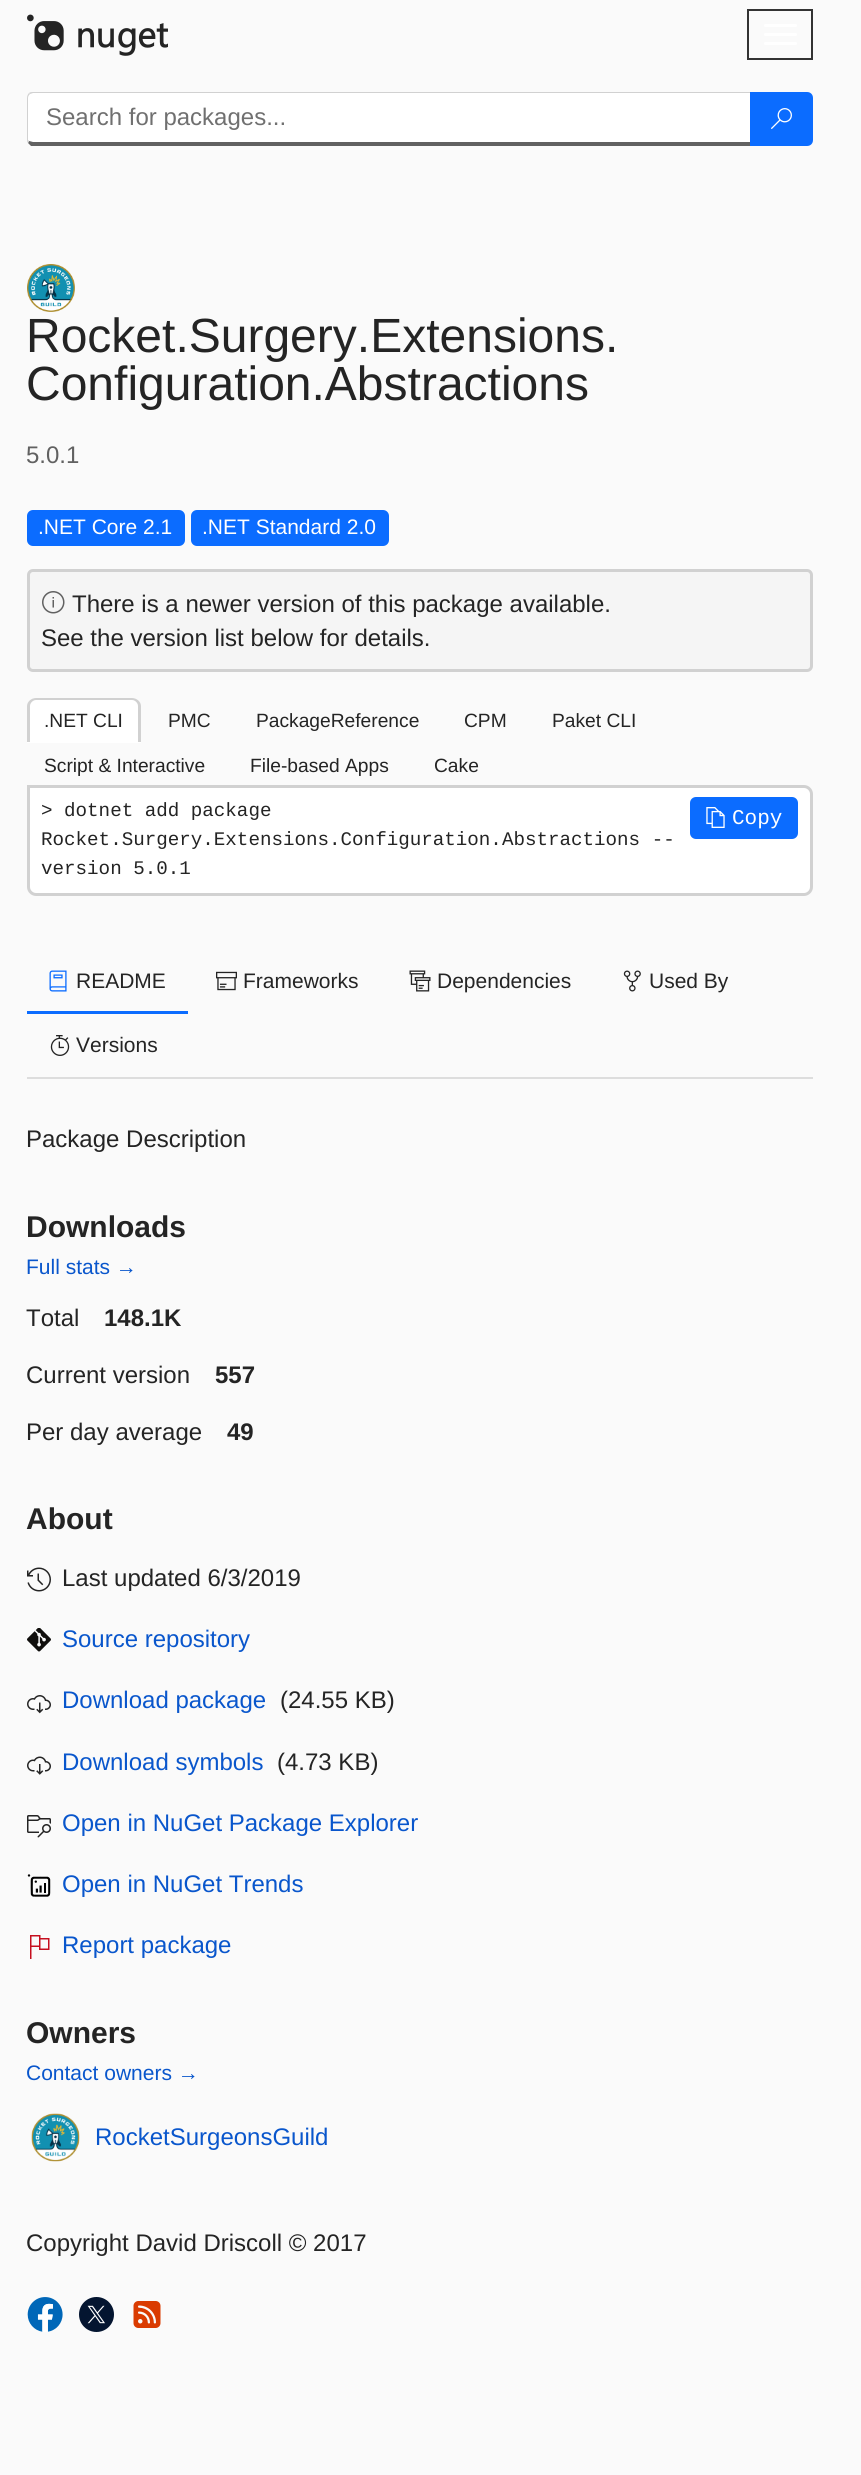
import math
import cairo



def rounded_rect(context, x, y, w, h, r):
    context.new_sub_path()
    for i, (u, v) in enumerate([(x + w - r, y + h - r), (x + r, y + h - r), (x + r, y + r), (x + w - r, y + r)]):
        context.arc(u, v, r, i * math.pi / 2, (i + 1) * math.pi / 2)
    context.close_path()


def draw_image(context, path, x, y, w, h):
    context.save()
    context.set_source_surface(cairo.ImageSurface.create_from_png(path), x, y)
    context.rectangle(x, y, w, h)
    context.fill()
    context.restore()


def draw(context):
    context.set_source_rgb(250 / 255, 250 / 255, 250 / 255)
    context.paint()
    draw_image(context, "images/1.png", 27, 14, 141, 42)
    context.rectangle(748, 10, 64, 49)
    context.set_source_rgb(51 / 255, 51 / 255, 51 / 255)
    context.stroke()
    context.set_source_rgb(1, 1, 1)
    rounded_rect(context, 764, 24, 33, 3, 1.5)
    context.fill()
    rounded_rect(context, 764, 33, 33, 3, 1.5)
    context.fill()
    rounded_rect(context, 764, 42, 33, 3, 1.5)
    context.fill()
    context.new_path()
    context.move_to(33, 93)
    context.line_to(750, 93)
    context.line_to(750, 142)
    context.line_to(33, 142)
    context.curve_to(31, 142, 28, 141, 28, 140)
    context.line_to(28, 98)
    context.curve_to(28, 95, 31, 93, 33, 93)
    context.close_path()
    context.fill()
    context.set_source_rgb(209 / 255, 209 / 255, 209 / 255)
    context.new_path()
    context.move_to(33, 92)
    context.curve_to(32, 92, 30, 92, 29, 93)
    context.line_to(30, 94)
    context.line_to(33, 93)
    context.line_to(750, 93)
    context.line_to(751, 92)
    context.close_path()
    context.fill()
    context.set_source_rgb(97 / 255, 97 / 255, 97 / 255)
    context.new_path()
    context.move_to(752, 146)
    context.line_to(31, 146)
    context.line_to(28, 143)
    context.line_to(29, 141)
    context.line_to(33, 142)
    context.line_to(750, 142)
    context.close_path()
    context.fill()
    context.set_source_rgb(209 / 255, 209 / 255, 209 / 255)
    context.new_path()
    context.move_to(27, 98)
    context.line_to(27, 140)
    context.curve_to(27, 141, 27, 142, 28, 143)
    context.line_to(29, 141)
    context.line_to(28, 140)
    context.line_to(28, 98)
    context.curve_to(28, 96, 29, 95, 30, 94)
    context.line_to(29, 93)
    context.curve_to(28, 94, 27, 96, 27, 98)
    context.close_path()
    context.fill()
    context.set_source_rgb(11 / 255, 108 / 255, 1)
    context.new_path()
    context.move_to(750, 92)
    context.line_to(807, 92)
    context.curve_to(810.5, 92, 813, 94.5, 813, 98)
    context.line_to(813, 140)
    context.curve_to(813, 143.5, 810.5, 146, 807, 146)
    context.line_to(750, 146)
    context.close_path()
    context.fill()
    draw_image(context, "images/2.png", 771, 108, 21, 21)
    draw_image(context, "images/3.png", 27, 264, 48, 48)
    rounded_rect(context, 27, 510, 158, 36, 6)
    context.fill()
    rounded_rect(context, 191, 510, 198, 36, 6)
    context.fill()
    context.set_source_rgb(245 / 255, 245 / 255, 245 / 255)
    rounded_rect(context, 28.5, 570.5, 783, 100, 4.5)
    context.fill_preserve()
    context.set_source_rgb(209 / 255, 209 / 255, 209 / 255)
    context.set_line_width(3)
    context.stroke()
    draw_image(context, "images/4.png", 42, 591, 23, 23)
    context.set_source_rgb(1, 1, 1)
    context.new_path()
    context.move_to(36, 698)
    context.line_to(132, 698)
    context.curve_to(137, 698, 141, 702, 141, 707)
    context.line_to(141, 743)
    context.line_to(27, 743)
    context.line_to(27, 707)
    context.curve_to(27, 702, 31, 698, 36, 698)
    context.close_path()
    context.fill()
    context.set_source_rgb(209 / 255, 209 / 255, 209 / 255)
    context.set_fill_rule(cairo.FillRule.EVEN_ODD)
    context.new_path()
    context.move_to(36, 698)
    context.line_to(132, 698)
    context.curve_to(137, 698, 141, 702, 141, 706)
    context.line_to(141, 742)
    context.line_to(27, 742)
    context.line_to(27, 706)
    context.curve_to(27, 702, 31, 698, 36, 698)
    context.close_path()
    context.move_to(36, 700)
    context.line_to(132, 700)
    context.curve_to(135, 700, 138, 703, 138, 706)
    context.line_to(138, 742)
    context.line_to(30, 742)
    context.line_to(30, 706)
    context.curve_to(30, 703, 33, 700, 36, 700)
    context.close_path()
    context.fill()
    context.set_source_rgb(1, 1, 1)
    context.new_path()
    context.move_to(28.5, 786.5)
    context.line_to(804, 786.5)
    context.curve_to(808, 786.5, 811.5, 790, 811.5, 794)
    context.line_to(811.5, 887)
    context.curve_to(811.5, 891, 808, 894.5, 804, 894.5)
    context.line_to(36, 894.5)
    context.curve_to(32, 894.5, 28.5, 891, 28.5, 887)
    context.close_path()
    context.fill_preserve()
    context.set_source_rgb(209 / 255, 209 / 255, 209 / 255)
    context.stroke()
    context.set_source_rgb(11 / 255, 108 / 255, 1)
    rounded_rect(context, 690, 797, 108, 42, 6)
    context.fill()
    draw_image(context, "images/5.png", 706, 807, 19, 21)
    context.set_source_rgb(221 / 255, 221 / 255, 221 / 255)
    context.rectangle(27, 1077, 786, 2)
    context.fill()
    context.set_source_rgb(11 / 255, 108 / 255, 1)
    context.rectangle(27, 1011, 161, 3)
    context.fill()
    draw_image(context, "images/6.png", 49, 970, 18, 22)
    draw_image(context, "images/7.png", 216, 971, 21, 20)
    draw_image(context, "images/8.png", 409, 970, 22, 22)
    draw_image(context, "images/9.png", 623, 970, 18, 22)
    draw_image(context, "images/10.png", 50, 1035, 20, 21)
    draw_image(context, "images/11.png", 27, 1567, 24, 25)
    draw_image(context, "images/12.png", 27, 1628, 24, 24)
    draw_image(context, "images/13.png", 27, 1695, 24, 19)
    draw_image(context, "images/14.png", 27, 1756, 24, 19)
    draw_image(context, "images/15.png", 27, 1815, 24, 23)
    draw_image(context, "images/16.png", 27, 1874, 24, 23)
    draw_image(context, "images/17.png", 30, 1935, 20, 24)
    draw_image(context, "images/18.png", 31, 2113, 49, 49)
    draw_image(context, "images/19.png", 27, 2297, 36, 35)
    draw_image(context, "images/20.png", 79, 2297, 35, 35)
    draw_image(context, "images/21.png", 133, 2301, 28, 27)
    context.select_font_face("Liberation Sans")
    context.set_font_size(24)
    context.set_source_rgb(112 / 255, 112 / 255, 112 / 255)
    context.move_to(46, 125)
    context.show_text("Search for packages...")
    context.set_font_size(48)
    context.set_source_rgb(36 / 255, 36 / 255, 36 / 255)
    context.move_to(26, 352)
    context.show_text("Rocket.Surgery.Extensions.")
    context.move_to(26, 400)
    context.show_text("Configuration.Abstractions")
    context.set_font_size(24)
    context.set_source_rgb(97 / 255, 97 / 255, 97 / 255)
    context.move_to(26, 463)
    context.show_text("5.0.1")
    context.set_font_size(21)
    context.set_source_rgb(1, 1, 1)
    context.move_to(38, 534)
    context.show_text(".NET Core 2.1")
    context.move_to(202, 534)
    context.show_text(".NET Standard 2.0")
    context.set_font_size(24)
    context.set_source_rgb(36 / 255, 36 / 255, 36 / 255)
    context.move_to(72, 612)
    context.show_text("There is a newer version of this package available.")
    context.move_to(41, 646)
    context.show_text("See the version list below for details.")
    context.set_font_size(19.2)
    context.move_to(44, 727)
    context.show_text(".NET CLI")
    context.move_to(168, 727)
    context.show_text("PMC")
    context.move_to(256, 727)
    context.show_text("PackageReference")
    context.move_to(464, 727)
    context.show_text("CPM")
    context.move_to(552, 727)
    context.show_text("Paket CLI")
    context.move_to(44, 772)
    context.show_text("Script & Interactive")
    context.move_to(250, 772)
    context.show_text("File-based Apps")
    context.move_to(434, 772)
    context.show_text("Cake")
    context.select_font_face("Liberation Mono")
    context.move_to(41, 816)
    context.show_text("> dotnet add package")
    context.move_to(41, 845)
    context.show_text("Rocket.Surgery.Extensions.Configuration.Abstractions --")
    context.move_to(41, 874)
    context.show_text("version 5.0.1")
    context.set_font_size(21)
    context.set_source_rgb(1, 1, 1)
    context.move_to(732, 824)
    context.show_text("Copy")
    context.select_font_face("Liberation Sans")
    context.set_source_rgb(36 / 255, 36 / 255, 36 / 255)
    context.move_to(76, 988)
    context.show_text("README")
    context.move_to(243, 988)
    context.show_text("Frameworks")
    context.move_to(437, 988)
    context.show_text("Dependencies")
    context.move_to(649, 988)
    context.show_text("Used By")
    context.move_to(76, 1052)
    context.show_text("Versions")
    context.set_font_size(24)
    context.move_to(26, 1147)
    context.show_text("Package Description")
    context.select_font_face("Liberation Sans", cairo.FontSlant.NORMAL, cairo.FontWeight.BOLD)
    context.set_font_size(30)
    context.move_to(26, 1237)
    context.show_text("Downloads")
    context.select_font_face("Liberation Sans")
    context.set_font_size(21)
    context.set_source_rgb(9 / 255, 86 / 255, 204 / 255)
    context.move_to(26, 1274)
    context.show_text("Full stats →")
    context.set_font_size(24)
    context.set_source_rgb(36 / 255, 36 / 255, 36 / 255)
    context.move_to(26, 1326)
    context.show_text("Total")
    context.select_font_face("Liberation Sans", cairo.FontSlant.NORMAL, cairo.FontWeight.BOLD)
    context.move_to(104, 1326)
    context.show_text("148.1K")
    context.select_font_face("Liberation Sans")
    context.move_to(26, 1383)
    context.show_text("Current version")
    context.select_font_face("Liberation Sans", cairo.FontSlant.NORMAL, cairo.FontWeight.BOLD)
    context.move_to(215, 1383)
    context.show_text("557")
    context.select_font_face("Liberation Sans")
    context.move_to(26, 1440)
    context.show_text("Per day average")
    context.select_font_face("Liberation Sans", cairo.FontSlant.NORMAL, cairo.FontWeight.BOLD)
    context.move_to(227, 1440)
    context.show_text("49")
    context.set_font_size(30)
    context.move_to(26, 1529)
    context.show_text("About")
    context.select_font_face("Liberation Sans")
    context.set_font_size(24)
    context.move_to(62, 1586)
    context.show_text("Last updated 6/3/2019")
    context.set_source_rgb(9 / 255, 86 / 255, 204 / 255)
    context.move_to(62, 1647)
    context.show_text("Source repository")
    context.move_to(62, 1708)
    context.show_text("Download package")
    context.set_source_rgb(36 / 255, 36 / 255, 36 / 255)
    context.move_to(280, 1708)
    context.show_text("(24.55 KB)")
    context.set_source_rgb(9 / 255, 86 / 255, 204 / 255)
    context.move_to(62, 1770)
    context.show_text("Download symbols")
    context.set_source_rgb(36 / 255, 36 / 255, 36 / 255)
    context.move_to(277, 1770)
    context.show_text("(4.73 KB)")
    context.set_source_rgb(9 / 255, 86 / 255, 204 / 255)
    context.move_to(62, 1831)
    context.show_text("Open in NuGet Package Explorer")
    context.move_to(62, 1892)
    context.show_text("Open in NuGet Trends")
    context.move_to(62, 1953)
    context.show_text("Report package")
    context.select_font_face("Liberation Sans", cairo.FontSlant.NORMAL, cairo.FontWeight.BOLD)
    context.set_font_size(30)
    context.set_source_rgb(36 / 255, 36 / 255, 36 / 255)
    context.move_to(26, 2043)
    context.show_text("Owners")
    context.select_font_face("Liberation Sans")
    context.set_font_size(21)
    context.set_source_rgb(9 / 255, 86 / 255, 204 / 255)
    context.move_to(26, 2080)
    context.show_text("Contact owners →")
    context.set_font_size(24)
    context.move_to(95, 2145)
    context.show_text("RocketSurgeonsGuild")
    context.set_source_rgb(36 / 255, 36 / 255, 36 / 255)
    context.move_to(26, 2251)
    context.show_text("Copyright David Driscoll © 2017")


surface = cairo.ImageSurface(cairo.Format.RGB24, 861, 2475)
context = cairo.Context(surface)
options = cairo.FontOptions()
options.set_hint_metrics(cairo.HintMetrics.OFF)
options.set_hint_style(cairo.HintStyle.NONE)
context.set_font_options(options)
context.set_miter_limit(4)
draw(context)
surface.write_to_png("out.png")
